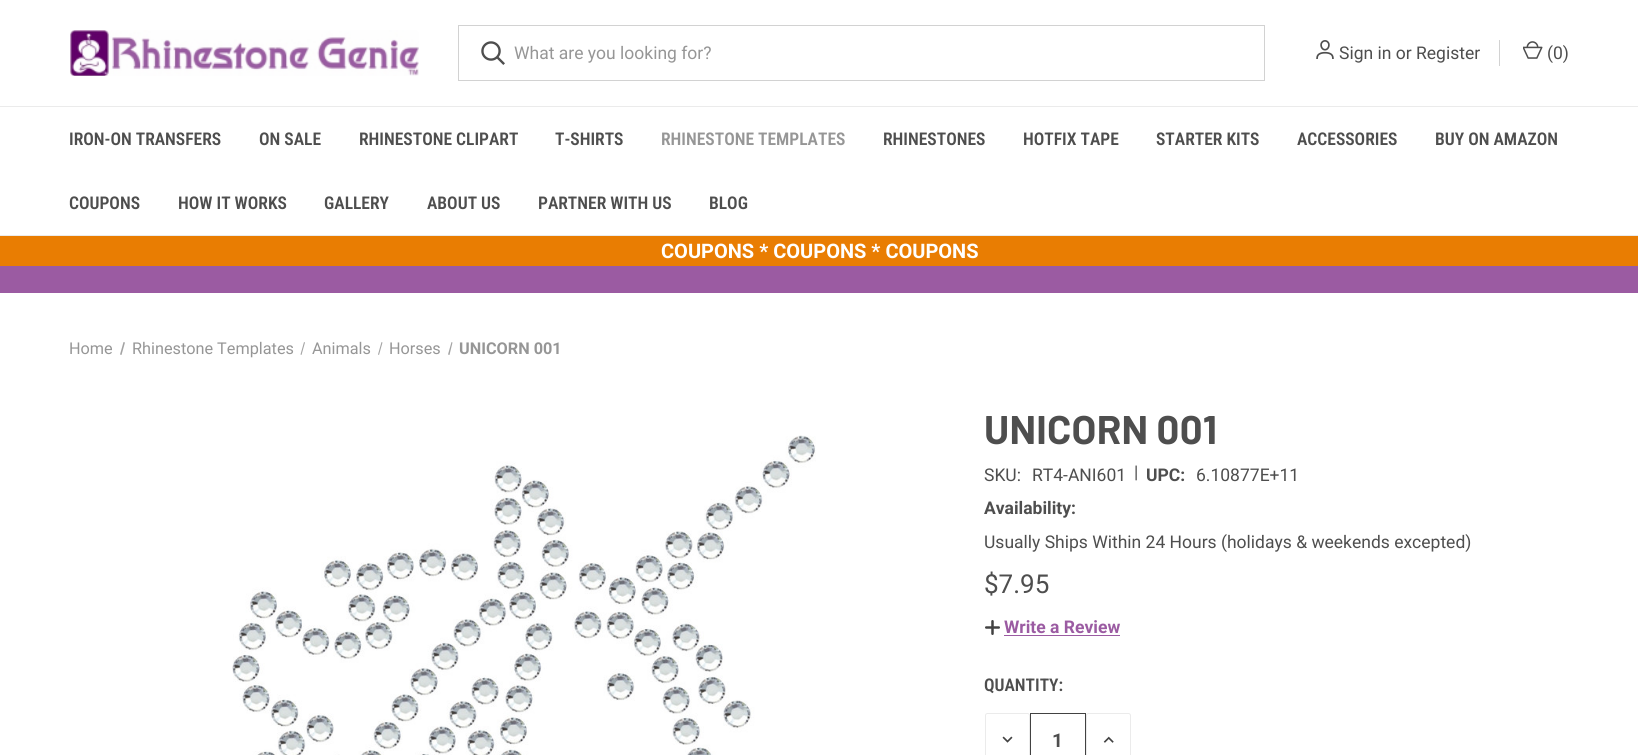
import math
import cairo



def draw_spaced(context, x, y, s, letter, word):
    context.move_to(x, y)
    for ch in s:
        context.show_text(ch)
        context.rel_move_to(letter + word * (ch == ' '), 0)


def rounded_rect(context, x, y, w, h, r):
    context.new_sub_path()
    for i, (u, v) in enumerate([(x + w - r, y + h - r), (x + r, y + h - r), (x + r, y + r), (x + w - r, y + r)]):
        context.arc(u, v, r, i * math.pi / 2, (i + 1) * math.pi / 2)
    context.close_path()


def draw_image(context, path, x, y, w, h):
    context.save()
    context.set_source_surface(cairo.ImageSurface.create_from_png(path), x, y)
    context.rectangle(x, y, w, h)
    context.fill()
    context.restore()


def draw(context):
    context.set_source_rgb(1, 1, 1)
    context.paint()
    draw_image(context, "images/1.png", 70, 30, 349, 46)
    context.rectangle(458.5, 25.5, 806, 55)
    context.set_source_rgb(210 / 255, 210 / 255, 210 / 255)
    context.set_line_width(1)
    context.stroke()
    draw_image(context, "images/2.png", 481, 41, 24, 24)
    draw_image(context, "images/3.png", 1316, 40, 18, 19)
    context.rectangle(1499, 40, 1, 26)
    context.fill()
    draw_image(context, "images/4.png", 1523, 41, 20, 18)
    context.set_source_rgb(235 / 255, 235 / 255, 235 / 255)
    context.rectangle(0, 106, 1638, 1)
    context.fill()
    context.rectangle(0, 235, 1638, 1)
    context.fill()
    context.set_source_rgb(233 / 255, 125 / 255, 2 / 255)
    context.rectangle(0, 236, 1638, 30)
    context.fill()
    context.set_source_rgb(155 / 255, 91 / 255, 162 / 255)
    context.rectangle(0, 266, 1638, 27)
    context.fill()
    context.set_source_rgb(163 / 255, 163 / 255, 163 / 255)
    context.new_path()
    context.move_to(123.5, 342)
    context.line_to(125, 342.5)
    context.line_to(121.5, 355)
    context.line_to(120, 354.5)
    context.close_path()
    context.fill()
    context.new_path()
    context.move_to(304, 342)
    context.line_to(305, 342.5)
    context.line_to(301.5, 355)
    context.line_to(300.5, 354.5)
    context.close_path()
    context.fill()
    context.new_path()
    context.move_to(381.5, 342)
    context.line_to(382.5, 342.5)
    context.line_to(379, 355)
    context.line_to(378, 354.5)
    context.close_path()
    context.fill()
    context.new_path()
    context.move_to(451.5, 342)
    context.line_to(452.5, 342.5)
    context.line_to(449.5, 355)
    context.line_to(448, 354.5)
    context.close_path()
    context.fill()
    draw_image(context, "images/5.png", 232, 435, 584, 320)
    draw_image(context, "images/6.png", 985, 620, 15, 15)
    context.set_source_rgb(155 / 255, 91 / 255, 162 / 255)
    context.rectangle(1004, 635, 116, 1)
    context.fill()
    rounded_rect(context, 985.5, 713.5, 44, 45, 2)
    context.set_source_rgb(235 / 255, 235 / 255, 235 / 255)
    context.stroke()
    draw_image(context, "images/7.png", 1002, 736, 11, 7)
    context.rectangle(1030.5, 713.5, 55, 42)
    context.set_source_rgb(66 / 255, 66 / 255, 66 / 255)
    context.stroke()
    rounded_rect(context, 1086.5, 713.5, 44, 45, 2)
    context.set_source_rgb(235 / 255, 235 / 255, 235 / 255)
    context.stroke()
    draw_image(context, "images/8.png", 1103, 736, 11, 7)
    context.select_font_face("Roboto")
    context.set_font_size(17.5)
    context.set_source_rgb(150 / 255, 150 / 255, 150 / 255)
    context.move_to(514, 59)
    context.show_text("What are you looking for?")
    context.set_source_rgb(78 / 255, 78 / 255, 78 / 255)
    context.move_to(1339, 59)
    context.show_text("Sign in or Register")
    context.move_to(1547, 59)
    context.show_text("(0)")
    context.select_font_face("Roboto Condensed SemiBold")
    context.move_to(69, 145)
    context.show_text("IRON-ON TRANSFERS")
    context.move_to(259, 145)
    context.show_text("ON SALE")
    context.move_to(359, 145)
    context.show_text("RHINESTONE CLIPART")
    context.move_to(555, 145)
    context.show_text("T-SHIRTS")
    context.set_source_rgb(150 / 255, 150 / 255, 150 / 255)
    context.move_to(661, 145)
    context.show_text("RHINESTONE TEMPLATES")
    context.set_source_rgb(78 / 255, 78 / 255, 78 / 255)
    context.move_to(883, 145)
    context.show_text("RHINESTONES")
    context.move_to(1023, 145)
    context.show_text("HOTFIX TAPE")
    context.move_to(1156, 145)
    context.show_text("STARTER KITS")
    context.move_to(1297, 145)
    context.show_text("ACCESSORIES")
    context.move_to(1435, 145)
    context.show_text("BUY ON AMAZON")
    context.move_to(69, 209)
    context.show_text("COUPONS")
    context.move_to(178, 209)
    context.show_text("HOW IT WORKS")
    context.move_to(324, 209)
    context.show_text("GALLERY")
    context.move_to(427, 209)
    context.show_text("ABOUT US")
    context.move_to(538, 209)
    context.show_text("PARTNER WITH US")
    context.move_to(709, 209)
    context.show_text("BLOG")
    context.select_font_face("Roboto", cairo.FontSlant.NORMAL, cairo.FontWeight.BOLD)
    context.set_font_size(20)
    context.set_source_rgb(1, 1, 1)
    context.move_to(661, 258)
    context.show_text("COUPONS * COUPONS * COUPONS")
    context.select_font_face("Roboto")
    context.set_font_size(16.25)
    context.set_source_rgb(150 / 255, 150 / 255, 150 / 255)
    context.move_to(69, 354)
    context.show_text("Home")
    context.move_to(132, 354)
    context.show_text("Rhinestone Templates")
    context.move_to(312, 354)
    context.show_text("Animals")
    context.move_to(389, 354)
    context.show_text("Horses")
    context.select_font_face("Roboto", cairo.FontSlant.NORMAL, cairo.FontWeight.BOLD)
    context.move_to(459, 354)
    context.show_text("UNICORN 001")
    context.select_font_face("Barlow", cairo.FontSlant.NORMAL, cairo.FontWeight.BOLD)
    context.set_font_size(40)
    context.set_source_rgb(78 / 255, 78 / 255, 78 / 255)
    draw_spaced(context, 984, 444, "UNICORN 001", 0.25, 0)
    context.select_font_face("Roboto")
    context.set_font_size(17.5)
    context.move_to(984, 481)
    context.show_text("SKU:")
    context.move_to(1032, 481)
    context.show_text("RT4-ANI601")
    context.move_to(1134, 478)
    context.show_text("|")
    context.select_font_face("Roboto", cairo.FontSlant.NORMAL, cairo.FontWeight.BOLD)
    context.move_to(1146, 481)
    context.show_text("UPC:")
    context.select_font_face("Roboto")
    context.move_to(1196, 481)
    context.show_text("6.10877E+11")
    context.select_font_face("Roboto", cairo.FontSlant.NORMAL, cairo.FontWeight.BOLD)
    context.move_to(984, 514)
    context.show_text("Availability:")
    context.select_font_face("Roboto")
    context.move_to(984, 548)
    context.show_text("Usually Ships Within 24 Hours (holidays & weekends excepted)")
    context.set_font_size(26)
    context.move_to(984, 593)
    context.show_text("$7.95")
    context.select_font_face("Roboto", cairo.FontSlant.NORMAL, cairo.FontWeight.BOLD)
    context.set_font_size(17.5)
    context.set_source_rgb(155 / 255, 91 / 255, 162 / 255)
    context.move_to(1004, 633)
    context.show_text("Write a Review")
    context.select_font_face("Roboto Condensed SemiBold")
    context.set_source_rgb(78 / 255, 78 / 255, 78 / 255)
    context.move_to(984, 691)
    context.show_text("QUANTITY:")
    context.select_font_face("Roboto", cairo.FontSlant.NORMAL, cairo.FontWeight.BOLD)
    context.set_font_size(19)
    context.move_to(1052, 747)
    context.show_text("1")


surface = cairo.ImageSurface(cairo.Format.RGB24, 1638, 755)
context = cairo.Context(surface)
options = cairo.FontOptions()
options.set_hint_metrics(cairo.HintMetrics.OFF)
options.set_hint_style(cairo.HintStyle.NONE)
context.set_font_options(options)
context.set_miter_limit(4)
draw(context)
surface.write_to_png("out.png")
